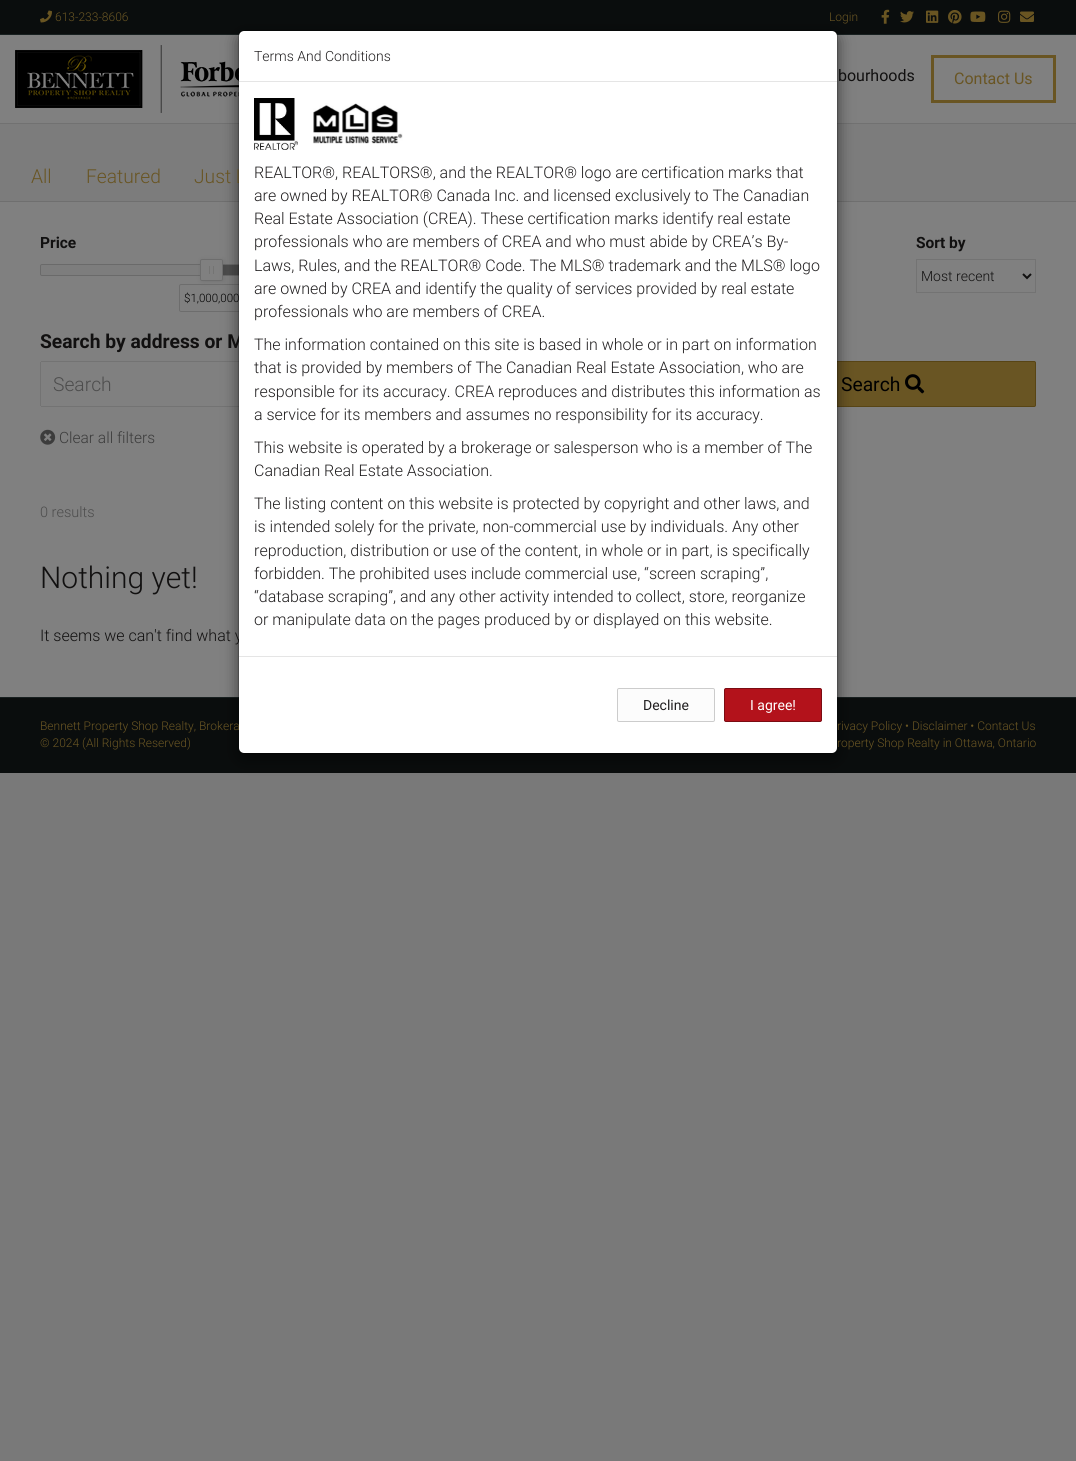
import math
import cairo



def rounded_rect(context, x, y, w, h, r):
    context.new_sub_path()
    for i, (u, v) in enumerate([(x + w - r, y + h - r), (x + r, y + h - r), (x + r, y + r), (x + w - r, y + r)]):
        context.arc(u, v, r, i * math.pi / 2, (i + 1) * math.pi / 2)
    context.close_path()


def draw_shadow(context, x, y, w, h, r, blur, alpha):
    context.push_group_with_content(cairo.Content.ALPHA)
    context.set_operator(cairo.Operator.SOURCE)
    for i in range(15, -16, -2):
        e = blur * i / 6
        if min(w, h) + 2 * e > 0:
            context.set_source_rgba(0, 0, 0, alpha * math.erfc((i - 1) / 8.5) / 2)
            rounded_rect(context, x - e, y - e, w + 2 * e, h + 2 * e, max(0, min(r + e + blur * .6, min(w, h) / 2 + e)))
            context.fill()
    context.mask(context.pop_group())


def draw_image(context, path, x, y, w, h):
    context.save()
    context.set_source_surface(cairo.ImageSurface.create_from_png(path), x, y)
    context.rectangle(x, y, w, h)
    context.fill()
    context.restore()


def draw(context):
    context.set_source_rgb(121 / 255, 121 / 255, 121 / 255)
    context.paint()
    context.set_source_rgb(10 / 255, 13 / 255, 13 / 255)
    context.rectangle(0, 0, 1076, 34)
    context.fill()
    context.set_source_rgb(24 / 255, 32 / 255, 32 / 255)
    context.rectangle(0, 34, 1076, 1)
    context.fill()
    draw_image(context, "images/1.png", 40, 10, 12, 13)
    draw_image(context, "images/2.png", 881, 9, 9, 15)
    draw_image(context, "images/3.png", 900, 11, 14, 12)
    draw_image(context, "images/4.png", 926, 10, 13, 13)
    draw_image(context, "images/5.png", 948, 10, 14, 14)
    draw_image(context, "images/6.png", 970, 11, 16, 11)
    draw_image(context, "images/7.png", 998, 10, 13, 13)
    draw_image(context, "images/8.png", 1020, 11, 14, 11)
    context.set_source_rgb(128 / 255, 128 / 255, 128 / 255)
    context.rectangle(0, 35, 1076, 88)
    context.fill()
    context.set_source_rgb(113 / 255, 113 / 255, 113 / 255)
    context.rectangle(0, 123, 1076, 1)
    context.fill()
    draw_image(context, "images/9.png", 15, 45, 224, 68)
    context.new_path()
    context.move_to(932.5, 56.5)
    context.line_to(1054.5, 56.5)
    context.line_to(1054.5, 101.5)
    context.line_to(932.5, 101.5)
    context.close_path()
    context.set_source_rgb(105 / 255, 85 / 255, 35 / 255)
    context.set_line_width(3)
    context.stroke()
    context.set_source_rgb(128 / 255, 128 / 255, 128 / 255)
    context.rectangle(0, 202, 1076, 495)
    context.fill()
    context.set_source_rgb(124 / 255, 124 / 255, 124 / 255)
    context.rectangle(0, 124, 1076, 77)
    context.fill()
    context.set_source_rgb(111 / 255, 111 / 255, 111 / 255)
    context.rectangle(0, 201, 1076, 1)
    context.fill()
    context.set_source_rgb(125 / 255, 125 / 255, 125 / 255)
    rounded_rect(context, 40.5, 264.5, 249, 11, 1.5)
    context.fill_preserve()
    context.set_source_rgb(106 / 255, 106 / 255, 106 / 255)
    context.set_line_width(1)
    context.stroke()
    context.set_source_rgb(77 / 255, 77 / 255, 77 / 255)
    context.rectangle(223, 265, 16, 10)
    context.fill()
    context.set_source_rgb(0, 0, 0)
    draw_shadow(context, 201, 260, 23, 22, 2, 2.5, 0.1)
    context.set_source_rgb(128 / 255, 128 / 255, 128 / 255)
    rounded_rect(context, 200.5, 259.5, 22, 21, 1.5)
    context.fill_preserve()
    context.set_source_rgb(109 / 255, 109 / 255, 109 / 255)
    context.stroke()
    context.set_source_rgb(116 / 255, 116 / 255, 115 / 255)
    context.rectangle(209, 266, 1, 8)
    context.fill()
    context.rectangle(213, 266, 1, 8)
    context.fill()
    rounded_rect(context, 179.5, 284.5, 66, 27, 1.5)
    context.set_source_rgb(109 / 255, 109 / 255, 109 / 255)
    context.stroke()
    context.rectangle(916.5, 259.5, 119, 33)
    context.set_source_rgb(115 / 255, 115 / 255, 115 / 255)
    context.stroke()
    context.new_path()
    context.move_to(1023, 274)
    context.line_to(1027, 278)
    context.line_to(1031, 274)
    context.set_source_rgb(17 / 255, 16 / 255, 16 / 255)
    context.set_line_width(2)
    context.stroke()
    context.set_source_rgb(115 / 255, 115 / 255, 115 / 255)
    context.rectangle(41, 361, 198, 1)
    context.fill()
    context.rectangle(41, 406, 198, 1)
    context.fill()
    context.rectangle(40, 362, 1, 44)
    context.fill()
    context.set_source_rgb(105 / 255, 85 / 255, 35 / 255)
    context.new_path()
    context.move_to(728.5, 361.5)
    context.line_to(1034, 361.5)
    context.curve_to(1035, 361.5, 1035.5, 362, 1035.5, 363)
    context.line_to(1035.5, 405)
    context.curve_to(1035.5, 406, 1035, 406.5, 1034, 406.5)
    context.line_to(728.5, 406.5)
    context.close_path()
    context.fill_preserve()
    context.set_source_rgb(88 / 255, 69 / 255, 21 / 255)
    context.set_line_width(1)
    context.stroke()
    draw_image(context, "images/10.png", 905, 374, 20, 20)
    draw_image(context, "images/11.png", 40, 429, 16, 16)
    context.set_source_rgb(10 / 255, 13 / 255, 13 / 255)
    context.rectangle(0, 698, 1076, 75)
    context.fill()
    context.set_source_rgb(24 / 255, 32 / 255, 32 / 255)
    context.rectangle(0, 697, 1076, 1)
    context.fill()
    context.set_source_rgb(0, 0, 0)
    draw_shadow(context, 238, 35, 600, 724, 6, 7.5, 0.5)
    context.select_font_face("Roboto Light")
    context.set_font_size(12)
    context.set_source_rgb(105 / 255, 85 / 255, 35 / 255)
    context.move_to(55, 21)
    context.show_text("613-233-8606")
    context.move_to(829, 21)
    context.show_text("Login")
    context.select_font_face("Roboto")
    context.set_font_size(16)
    context.set_source_rgb(17 / 255, 16 / 255, 16 / 255)
    context.move_to(838, 81)
    context.show_text("bourhoods")
    context.set_source_rgb(105 / 255, 85 / 255, 35 / 255)
    context.move_to(954, 84)
    context.show_text("Contact Us")
    context.select_font_face("Roboto Light")
    context.set_font_size(19.25)
    context.move_to(31, 183)
    context.show_text("All")
    context.move_to(86, 183)
    context.show_text("Featured")
    context.move_to(194, 183)
    context.show_text("Just L")
    context.select_font_face("Roboto", cairo.FontSlant.NORMAL, cairo.FontWeight.BOLD)
    context.set_font_size(15.5)
    context.set_source_rgb(17 / 255, 16 / 255, 16 / 255)
    context.move_to(40, 248)
    context.show_text("Price")
    context.select_font_face("Roboto Light")
    context.set_font_size(11.5)
    context.set_source_rgb(0, 0, 0)
    context.move_to(184, 302)
    context.show_text("$1,000,000")
    context.select_font_face("Roboto", cairo.FontSlant.NORMAL, cairo.FontWeight.BOLD)
    context.set_font_size(15.5)
    context.set_source_rgb(17 / 255, 16 / 255, 16 / 255)
    context.move_to(916, 248)
    context.show_text("Sort by")
    context.select_font_face("Roboto Light")
    context.set_font_size(14)
    context.move_to(921, 281)
    context.show_text("Most recent")
    context.select_font_face("Roboto", cairo.FontSlant.NORMAL, cairo.FontWeight.BOLD)
    context.set_font_size(19.25)
    context.move_to(40, 348)
    context.show_text("Search by address or M")
    context.select_font_face("Roboto Light")
    context.set_source_rgb(77 / 255, 77 / 255, 77 / 255)
    context.move_to(53, 391)
    context.show_text("Search")
    context.select_font_face("Roboto")
    context.set_source_rgb(0, 0, 0)
    context.move_to(841, 391)
    context.show_text("Search")
    context.select_font_face("Roboto Light")
    context.set_font_size(15.5)
    context.set_source_rgb(60 / 255, 60 / 255, 60 / 255)
    context.move_to(59, 443)
    context.show_text("Clear all filters")
    context.set_font_size(14.5)
    context.set_source_rgb(77 / 255, 77 / 255, 77 / 255)
    context.move_to(40, 517)
    context.show_text("0 results")
    context.set_font_size(30)
    context.set_source_rgb(17 / 255, 16 / 255, 16 / 255)
    context.move_to(40, 588)
    context.show_text("Nothing yet!")
    context.set_font_size(16)
    context.move_to(40, 641)
    context.show_text("It seems we can't find what y")
    context.set_font_size(12)
    context.set_source_rgb(105 / 255, 85 / 255, 35 / 255)
    context.move_to(40, 730)
    context.show_text("Bennett Property Shop Realty, Brokera")
    context.move_to(40, 747)
    context.show_text("© 2024 (All Rights Reserved)")
    context.move_to(837, 730)
    context.show_text("rivacy Policy • Disclaimer • Contact Us")
    context.move_to(837, 747)
    context.show_text("roperty Shop Realty in Ottawa, Ontario")
    context.set_source_rgb(1, 1, 1)
    rounded_rect(context, 239, 31, 598, 722, 5)
    context.fill()
    rounded_rect(context, 238.5, 30.5, 599, 723, 5.5)
    context.set_source_rgba(0, 0, 0, 0.2)
    context.stroke()
    context.set_source_rgb(229 / 255, 229 / 255, 229 / 255)
    context.rectangle(239, 81, 598, 1)
    context.fill()
    context.set_font_size(14)
    context.set_source_rgb(33 / 255, 31 / 255, 32 / 255)
    context.move_to(254, 61)
    context.show_text("Terms And Conditions")
    draw_image(context, "images/12.png", 254, 98, 44, 52)
    draw_image(context, "images/13.png", 313, 103, 90, 41)
    context.set_font_size(16)
    context.move_to(254, 178)
    context.show_text("REALTOR®, REALTORS®, and the REALTOR® logo are certification marks that")
    context.move_to(254, 201)
    context.show_text("are owned by REALTOR® Canada Inc. and licensed exclusively to The Canadian")
    context.move_to(254, 224)
    context.show_text("Real Estate Association (CREA). These certification marks identify real estate")
    context.move_to(254, 247)
    context.show_text("professionals who are members of CREA and who must abide by CREA’s By-")
    context.move_to(254, 271)
    context.show_text("Laws, Rules, and the REALTOR® Code. The MLS® trademark and the MLS® logo")
    context.move_to(254, 294)
    context.show_text("are owned by CREA and identify the quality of services provided by real estate")
    context.move_to(254, 317)
    context.show_text("professionals who are members of CREA.")
    context.move_to(254, 350)
    context.show_text("The information contained on this site is based in whole or in part on information")
    context.move_to(254, 373)
    context.show_text("that is provided by members of The Canadian Real Estate Association, who are")
    context.move_to(254, 397)
    context.show_text("responsible for its accuracy. CREA reproduces and distributes this information as")
    context.move_to(254, 420)
    context.show_text("a service for its members and assumes no responsibility for its accuracy.")
    context.move_to(254, 453)
    context.show_text("This website is operated by a brokerage or salesperson who is a member of The")
    context.move_to(254, 476)
    context.show_text("Canadian Real Estate Association.")
    context.move_to(254, 509)
    context.show_text("The listing content on this website is protected by copyright and other laws, and")
    context.move_to(254, 532)
    context.show_text("is intended solely for the private, non-commercial use by individuals. Any other")
    context.move_to(254, 556)
    context.show_text("reproduction, distribution or use of the content, in whole or in part, is specifically")
    context.move_to(254, 579)
    context.show_text("forbidden. The prohibited uses include commercial use, “screen scraping”,")
    context.move_to(254, 602)
    context.show_text("“database scraping”, and any other activity intended to collect, store, reorganize")
    context.move_to(254, 625)
    context.show_text("or manipulate data on the pages produced by or displayed on this website.")
    context.set_source_rgb(229 / 255, 229 / 255, 229 / 255)
    context.rectangle(239, 656, 598, 1)
    context.fill()
    context.set_source_rgb(252 / 255, 252 / 255, 252 / 255)
    rounded_rect(context, 617.5, 688.5, 97, 33, 1.5)
    context.fill_preserve()
    context.set_source_rgb(204 / 255, 204 / 255, 204 / 255)
    context.stroke()
    context.select_font_face("Roboto")
    context.set_font_size(14)
    context.set_source_rgb(33 / 255, 31 / 255, 32 / 255)
    context.move_to(643, 710)
    context.show_text("Decline")
    context.set_source_rgb(179 / 255, 18 / 255, 27 / 255)
    rounded_rect(context, 724.5, 688.5, 97, 33, 1.5)
    context.fill_preserve()
    context.set_source_rgb(123 / 255, 12 / 255, 19 / 255)
    context.stroke()
    context.set_source_rgb(1, 1, 1)
    context.move_to(750, 710)
    context.show_text("I agree!")


surface = cairo.ImageSurface(cairo.Format.RGB24, 1076, 1461)
context = cairo.Context(surface)
options = cairo.FontOptions()
options.set_hint_metrics(cairo.HintMetrics.OFF)
options.set_hint_style(cairo.HintStyle.NONE)
context.set_font_options(options)
context.set_miter_limit(4)
draw(context)
surface.write_to_png("out.png")
